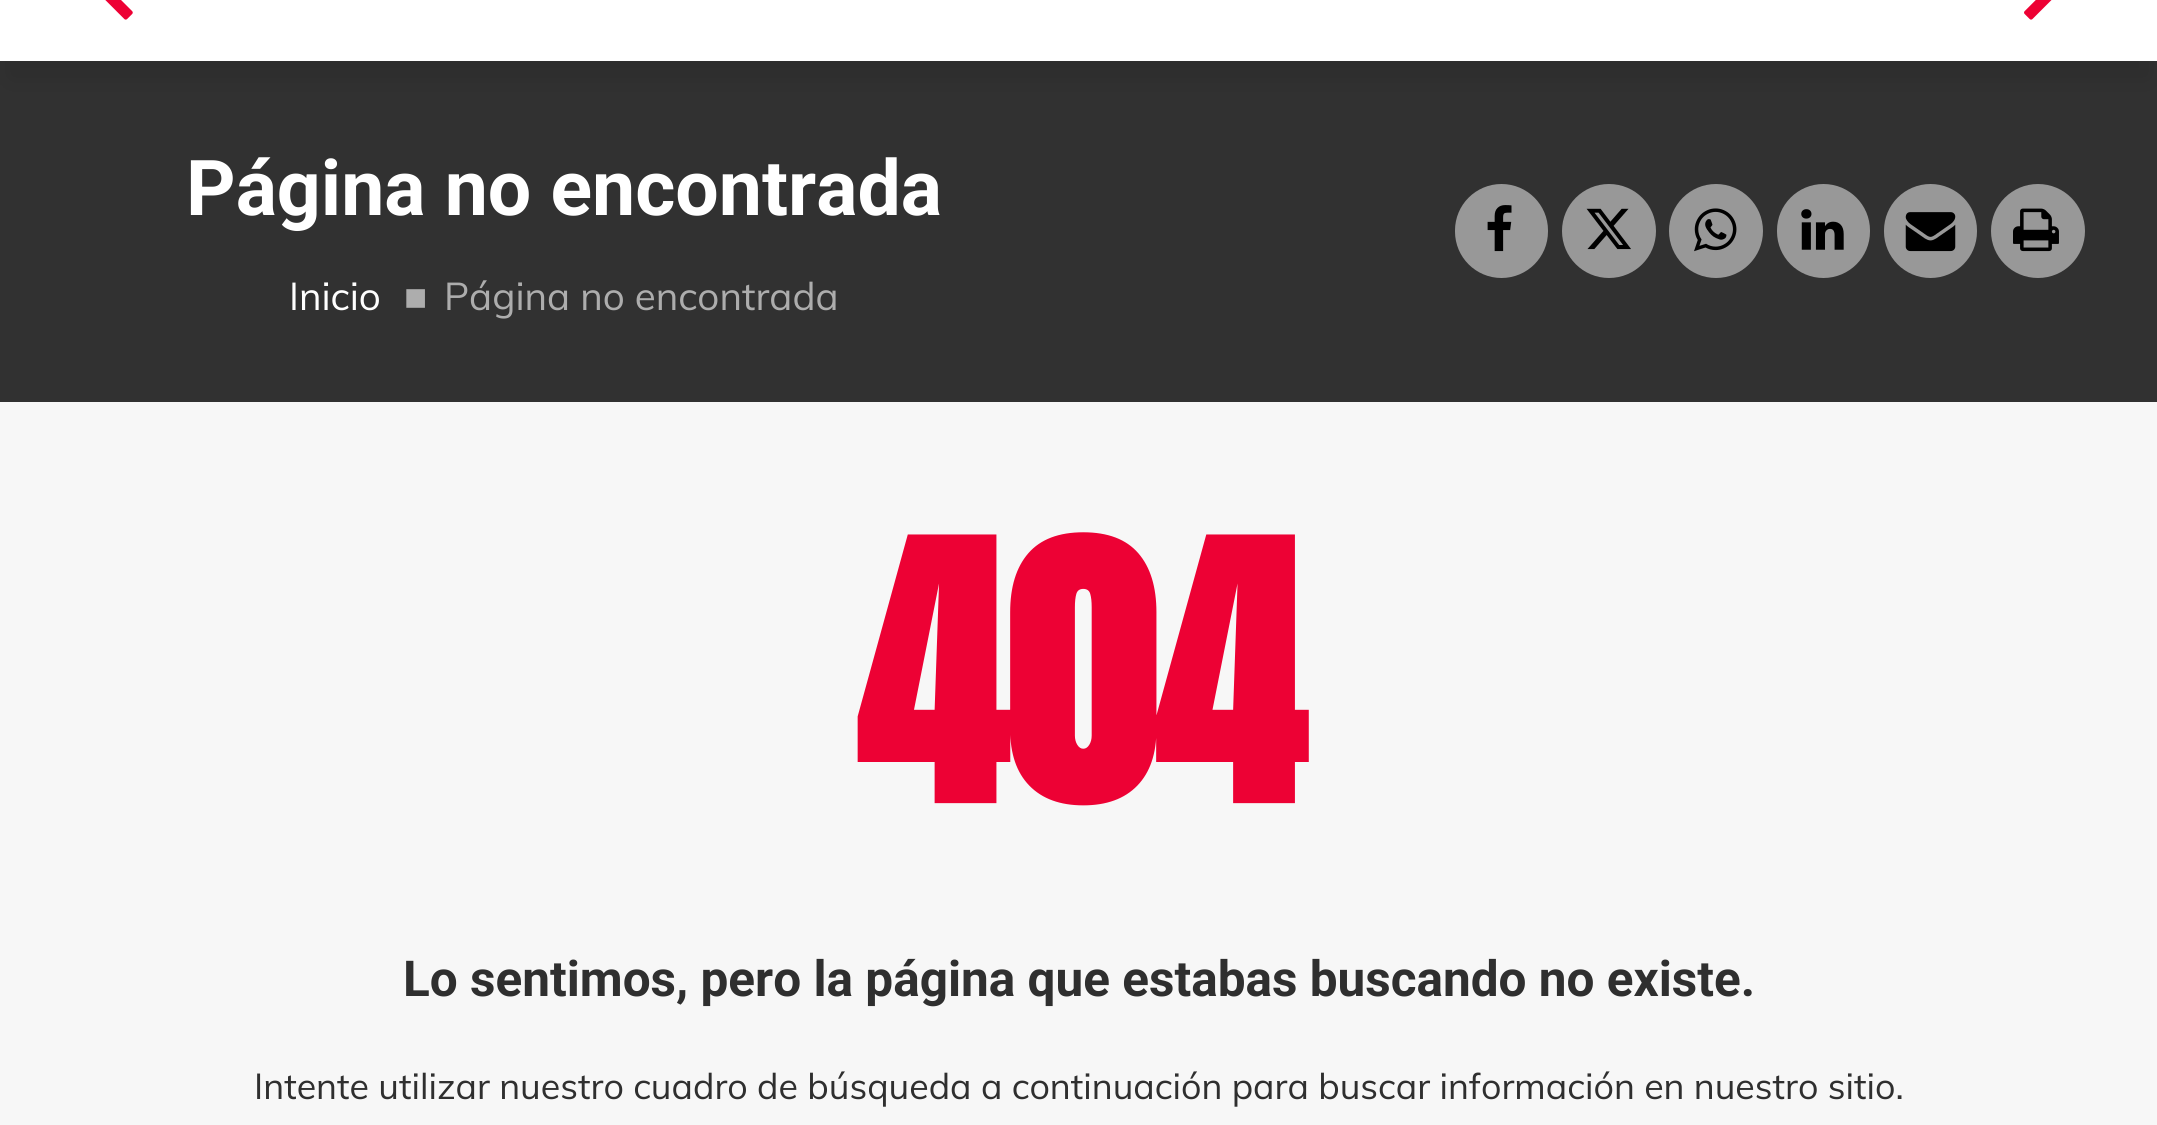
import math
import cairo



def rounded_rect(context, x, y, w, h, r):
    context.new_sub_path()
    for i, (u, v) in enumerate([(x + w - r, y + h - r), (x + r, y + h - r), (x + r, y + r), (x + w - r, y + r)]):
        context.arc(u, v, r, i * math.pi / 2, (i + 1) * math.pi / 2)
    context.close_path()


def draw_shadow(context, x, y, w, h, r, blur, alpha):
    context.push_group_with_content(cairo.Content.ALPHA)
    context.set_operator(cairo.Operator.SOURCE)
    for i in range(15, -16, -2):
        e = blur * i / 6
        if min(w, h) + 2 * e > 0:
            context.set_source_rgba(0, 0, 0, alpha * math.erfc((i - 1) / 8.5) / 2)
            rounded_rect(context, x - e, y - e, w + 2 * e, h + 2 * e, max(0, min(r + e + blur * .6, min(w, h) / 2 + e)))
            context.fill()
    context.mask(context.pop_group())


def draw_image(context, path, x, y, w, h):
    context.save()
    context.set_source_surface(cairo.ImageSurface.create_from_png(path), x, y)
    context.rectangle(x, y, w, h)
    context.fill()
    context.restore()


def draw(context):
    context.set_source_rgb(247 / 255, 247 / 255, 247 / 255)
    context.paint()
    context.set_source_rgb(0, 0, 0)
    draw_shadow(context, 8, -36, 2143, 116, 0, 14, 0.1)
    context.set_source_rgb(1, 1, 1)
    context.rectangle(0, 0, 2157, 61)
    context.fill()
    draw_image(context, "images/1.png", 105, 0, 28, 20)
    draw_image(context, "images/2.png", 2024, 0, 28, 20)
    context.set_source_rgba(0, 0, 0, 0.8)
    context.rectangle(0, 61, 2157, 341)
    context.fill()
    context.set_source_rgb(152 / 255, 152 / 255, 152 / 255)
    rounded_rect(context, 1455, 184, 93, 94, 46.5)
    context.fill()
    draw_image(context, "images/3.png", 1487, 205, 25, 47)
    context.arc(1609, 231, 47, 0, 2 * math.pi)
    context.fill()
    draw_image(context, "images/4.png", 1586, 208, 45, 42)
    context.arc(1716, 231, 47, 0, 2 * math.pi)
    context.fill()
    draw_image(context, "images/5.png", 1694, 208, 43, 44)
    rounded_rect(context, 1777, 184, 93, 94, 46.5)
    context.fill()
    draw_image(context, "images/6.png", 1801, 209, 43, 41)
    rounded_rect(context, 1884, 184, 93, 94, 46.5)
    context.fill()
    draw_image(context, "images/7.png", 1905, 212, 51, 40)
    context.arc(2038, 231, 47, 0, 2 * math.pi)
    context.fill()
    draw_image(context, "images/8.png", 2013, 208, 46, 44)
    context.select_font_face("Roboto", cairo.FontSlant.NORMAL, cairo.FontWeight.BOLD)
    context.set_font_size(77)
    context.set_source_rgb(1, 1, 1)
    context.move_to(186, 215)
    context.show_text("Página no encontrada")
    context.select_font_face("Muli")
    context.set_font_size(38.5)
    context.move_to(289, 310)
    context.show_text("Inicio")
    context.select_font_face("Liberation Sans")
    context.set_source_rgb(173 / 255, 173 / 255, 173 / 255)
    context.move_to(404, 310)
    context.show_text("■")
    context.select_font_face("Muli")
    context.move_to(444, 310)
    context.show_text("Página no encontrada")
    context.select_font_face("Anton", cairo.FontSlant.NORMAL, cairo.FontWeight.BOLD)
    context.set_font_size(302)
    context.set_source_rgb(237 / 255, 1 / 255, 52 / 255)
    context.move_to(855, 803)
    context.show_text("404")
    context.select_font_face("Roboto", cairo.FontSlant.NORMAL, cairo.FontWeight.BOLD)
    context.set_font_size(49.5)
    context.set_source_rgb(47 / 255, 47 / 255, 47 / 255)
    context.move_to(403, 996)
    context.show_text("Lo sentimos, pero la página que estabas buscando no existe.")
    context.select_font_face("Muli")
    context.set_font_size(35.75)
    context.move_to(254, 1099)
    context.show_text("Intente utilizar nuestro cuadro de búsqueda a continuación para buscar información en nuestro sitio.")


surface = cairo.ImageSurface(cairo.Format.RGB24, 2157, 1125)
context = cairo.Context(surface)
options = cairo.FontOptions()
options.set_hint_metrics(cairo.HintMetrics.OFF)
options.set_hint_style(cairo.HintStyle.NONE)
context.set_font_options(options)
context.set_miter_limit(4)
draw(context)
surface.write_to_png("out.png")
